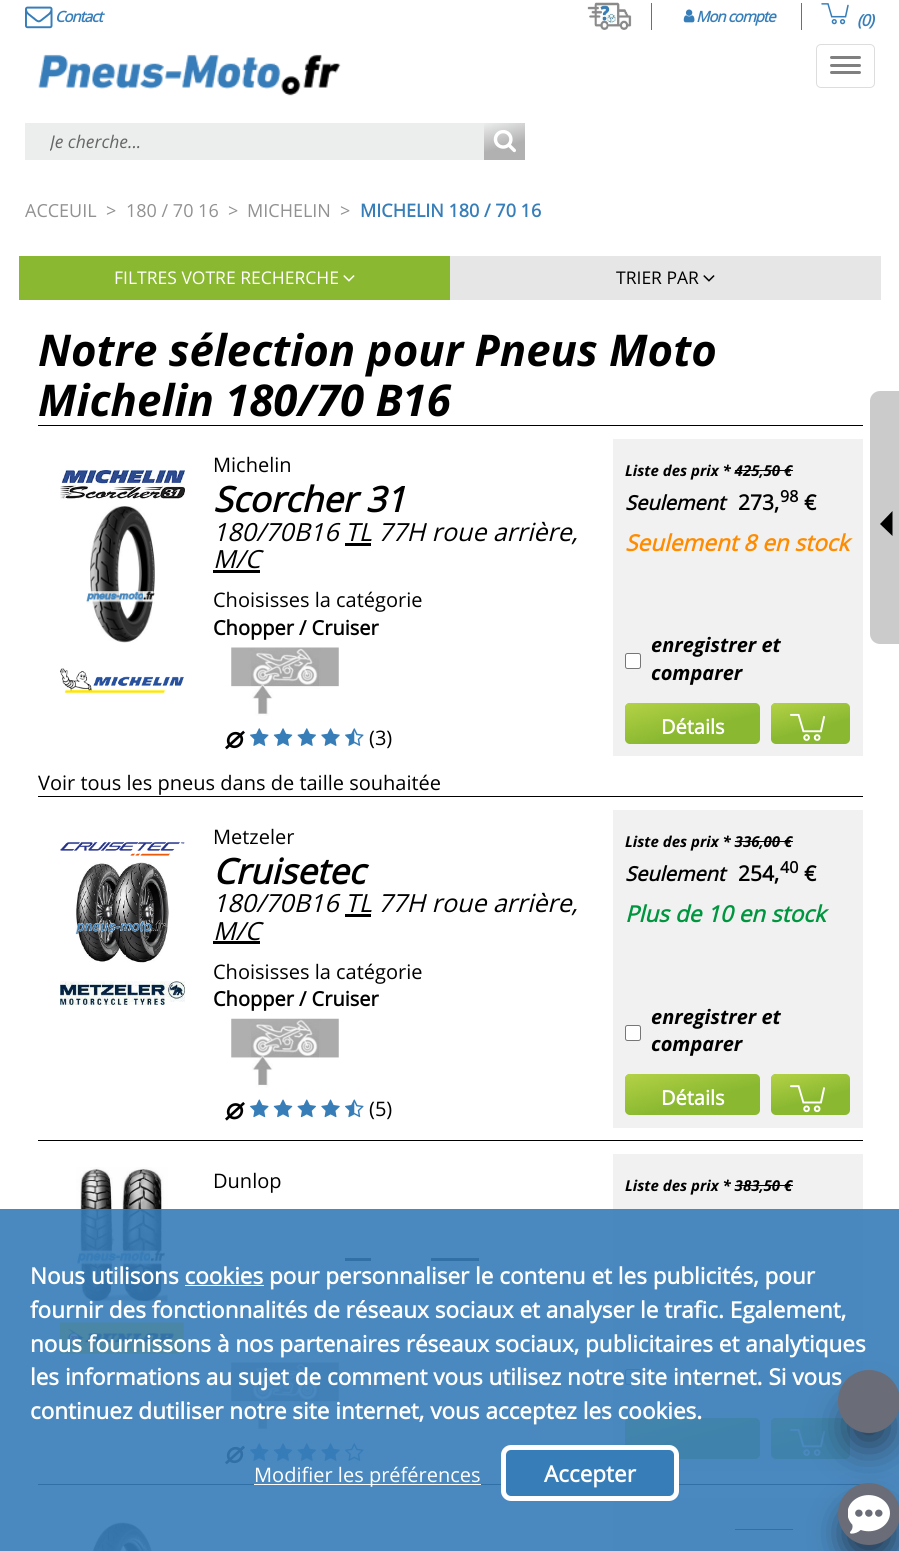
import math
import cairo



def draw_spaced(context, x, y, s, letter, word):
    context.move_to(x, y)
    for ch in s:
        context.show_text(ch)
        context.rel_move_to(letter + word * (ch == ' '), 0)


def rounded_rect(context, x, y, w, h, r):
    context.new_sub_path()
    for i, (u, v) in enumerate([(x + w - r, y + h - r), (x + r, y + h - r), (x + r, y + r), (x + w - r, y + r)]):
        context.arc(u, v, r, i * math.pi / 2, (i + 1) * math.pi / 2)
    context.close_path()


def draw_shadow(context, x, y, w, h, r, blur, alpha):
    context.push_group_with_content(cairo.Content.ALPHA)
    context.set_operator(cairo.Operator.SOURCE)
    for i in range(15, -16, -2):
        e = blur * i / 6
        if min(w, h) + 2 * e > 0:
            context.set_source_rgba(0, 0, 0, alpha * math.erfc((i - 1) / 8.5) / 2)
            rounded_rect(context, x - e, y - e, w + 2 * e, h + 2 * e, max(0, min(r + e + blur * .6, min(w, h) / 2 + e)))
            context.fill()
    context.mask(context.pop_group())


def draw_image(context, path, x, y, w, h):
    context.save()
    context.set_source_surface(cairo.ImageSurface.create_from_png(path), x, y)
    context.rectangle(x, y, w, h)
    context.fill()
    context.restore()


def draw(context):
    context.set_source_rgb(1, 1, 1)
    context.paint()
    draw_image(context, "images/1.png", 25, 6, 28, 23)
    context.set_source_rgb(55 / 255, 126 / 255, 185 / 255)
    context.rectangle(651, 3, 1, 27)
    context.fill()
    draw_image(context, "images/2.png", 587, 2, 45, 28)
    context.rectangle(801, 3, 1, 27)
    context.fill()
    draw_image(context, "images/3.png", 683, 9, 12, 14)
    draw_image(context, "images/4.png", 821, 3, 28, 22)
    draw_image(context, "images/5.png", 38, 54, 303, 42)
    rounded_rect(context, 816.5, 44.5, 58, 43, 4.5)
    context.set_source_rgb(221 / 255, 221 / 255, 221 / 255)
    context.set_line_width(1)
    context.stroke()
    context.set_source_rgb(128 / 255, 128 / 255, 128 / 255)
    rounded_rect(context, 830, 56, 31, 3, 1.5)
    context.fill()
    rounded_rect(context, 830, 64, 31, 3, 1.5)
    context.fill()
    rounded_rect(context, 830, 71, 31, 3, 1.5)
    context.fill()
    context.set_source_rgb(236 / 255, 237 / 255, 237 / 255)
    context.rectangle(25, 123, 459, 37)
    context.fill()
    gradient = cairo.LinearGradient(498, 119, 511, 165)
    gradient.add_color_stop_rgba(0, 236 / 255, 237 / 255, 237 / 255, 1)
    gradient.add_color_stop_rgba(0.6, 177 / 255, 177 / 255, 177 / 255, 1)
    context.set_source(gradient)
    context.rectangle(484, 123, 41, 37)
    context.fill()
    draw_image(context, "images/6.png", 493, 130, 23, 23)
    context.set_source_rgb(203 / 255, 203 / 255, 203 / 255)
    context.new_path()
    context.move_to(880, 391)
    context.line_to(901, 391)
    context.line_to(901, 644)
    context.line_to(880, 644)
    context.curve_to(874.5, 644, 870, 639.5, 870, 634)
    context.line_to(870, 401)
    context.curve_to(870, 395.5, 874.5, 391, 880, 391)
    context.close_path()
    context.fill()
    context.set_source_rgb(0, 0, 0)
    context.new_path()
    context.move_to(892.5, 511)
    context.line_to(892.5, 536)
    context.line_to(880, 524)
    context.close_path()
    context.fill()
    context.set_source_rgb(138 / 255, 185 / 255, 49 / 255)
    context.rectangle(19, 256, 431, 44)
    context.fill()
    draw_image(context, "images/7.png", 343, 275, 12, 7)
    context.set_source_rgb(230 / 255, 230 / 255, 230 / 255)
    context.rectangle(450, 256, 431, 44)
    context.fill()
    draw_image(context, "images/8.png", 703, 275, 12, 7)
    context.set_source_rgb(0, 0, 0)
    context.rectangle(38, 425, 825, 1)
    context.fill()
    draw_image(context, "images/9.png", 60, 470, 125, 29)
    draw_image(context, "images/10.png", 86, 506, 69, 137)
    draw_image(context, "images/11.png", 60, 668, 124, 25)
    context.rectangle(345, 543, 26, 3)
    context.fill()
    context.rectangle(213, 570, 47, 3)
    context.fill()
    draw_image(context, "images/12.png", 231, 647, 108, 69)
    draw_image(context, "images/13.png", 225, 730, 20, 20)
    draw_image(context, "images/14.png", 250, 728, 19, 18)
    draw_image(context, "images/15.png", 273, 728, 20, 18)
    draw_image(context, "images/16.png", 297, 728, 19, 18)
    draw_image(context, "images/17.png", 321, 728, 19, 18)
    draw_image(context, "images/18.png", 345, 728, 19, 18)
    context.set_source_rgb(241 / 255, 241 / 255, 241 / 255)
    context.rectangle(613, 439, 250, 317)
    context.fill()
    context.set_source_rgb(0, 0, 0)
    context.rectangle(735, 470, 58, 1)
    context.fill()
    context.set_source_rgb(1, 1, 1)
    rounded_rect(context, 625.5, 653.5, 15, 15, 2)
    context.fill_preserve()
    context.set_source_rgb(118 / 255, 118 / 255, 118 / 255)
    context.stroke()
    context.set_source_rgb(138 / 255, 185 / 255, 49 / 255)
    rounded_rect(context, 625, 703, 135, 41, 5)
    context.fill()
    gradient = cairo.LinearGradient(683, 687, 702, 759)
    gradient.add_color_stop_rgba(0, 181 / 255, 210 / 255, 70 / 255, 1)
    gradient.add_color_stop_rgba(0.6, 181 / 255, 210 / 255, 70 / 255, 0)
    context.set_source(gradient)
    rounded_rect(context, 625, 703, 135, 41, 5)
    context.fill()
    context.set_source_rgb(138 / 255, 185 / 255, 49 / 255)
    rounded_rect(context, 771, 703, 79, 41, 5)
    context.fill()
    gradient = cairo.LinearGradient(803, 694, 818, 752)
    gradient.add_color_stop_rgba(0, 181 / 255, 210 / 255, 70 / 255, 1)
    gradient.add_color_stop_rgba(0.6, 181 / 255, 210 / 255, 70 / 255, 0)
    context.set_source(gradient)
    rounded_rect(context, 771, 703, 79, 41, 5)
    context.fill()
    draw_image(context, "images/19.png", 790, 713, 35, 28)
    context.set_source_rgb(0, 0, 0)
    context.rectangle(38, 796, 825, 1)
    context.fill()
    draw_image(context, "images/20.png", 60, 842, 125, 14)
    draw_image(context, "images/21.png", 75, 862, 94, 101)
    draw_image(context, "images/22.png", 60, 981, 125, 24)
    context.rectangle(345, 914, 26, 3)
    context.fill()
    context.rectangle(213, 941, 47, 3)
    context.fill()
    draw_image(context, "images/23.png", 231, 1018, 108, 70)
    draw_image(context, "images/24.png", 225, 1102, 20, 19)
    draw_image(context, "images/25.png", 250, 1099, 19, 19)
    draw_image(context, "images/26.png", 273, 1099, 20, 19)
    draw_image(context, "images/27.png", 297, 1099, 19, 19)
    draw_image(context, "images/28.png", 321, 1099, 19, 19)
    draw_image(context, "images/29.png", 345, 1099, 19, 19)
    context.set_source_rgb(241 / 255, 241 / 255, 241 / 255)
    context.rectangle(613, 810, 250, 318)
    context.fill()
    context.set_source_rgb(0, 0, 0)
    context.rectangle(735, 841, 58, 1)
    context.fill()
    context.set_source_rgb(1, 1, 1)
    rounded_rect(context, 625.5, 1025.5, 15, 15, 2)
    context.fill_preserve()
    context.set_source_rgb(118 / 255, 118 / 255, 118 / 255)
    context.stroke()
    context.set_source_rgb(138 / 255, 185 / 255, 49 / 255)
    rounded_rect(context, 625, 1074, 135, 41, 5)
    context.fill()
    gradient = cairo.LinearGradient(683, 1058, 702, 1130)
    gradient.add_color_stop_rgba(0, 181 / 255, 210 / 255, 70 / 255, 1)
    gradient.add_color_stop_rgba(0.6, 181 / 255, 210 / 255, 70 / 255, 0)
    context.set_source(gradient)
    rounded_rect(context, 625, 1074, 135, 41, 5)
    context.fill()
    context.set_source_rgb(138 / 255, 185 / 255, 49 / 255)
    rounded_rect(context, 771, 1074, 79, 41, 5)
    context.fill()
    gradient = cairo.LinearGradient(803, 1065, 818, 1123)
    gradient.add_color_stop_rgba(0, 181 / 255, 210 / 255, 70 / 255, 1)
    gradient.add_color_stop_rgba(0.6, 181 / 255, 210 / 255, 70 / 255, 0)
    context.set_source(gradient)
    rounded_rect(context, 771, 1074, 79, 41, 5)
    context.fill()
    draw_image(context, "images/30.png", 790, 1085, 35, 28)
    context.set_source_rgb(0, 0, 0)
    context.rectangle(38, 1140, 825, 1)
    context.fill()
    draw_image(context, "images/31.png", 76, 1167, 92, 135)
    draw_image(context, "images/32.png", 60, 1322, 124, 32)
    context.rectangle(345, 1258, 26, 3)
    context.fill()
    context.rectangle(431, 1258, 48, 3)
    context.fill()
    draw_image(context, "images/12.png", 231, 1362, 108, 69)
    draw_image(context, "images/13.png", 225, 1445, 20, 20)
    draw_image(context, "images/14.png", 250, 1443, 19, 18)
    draw_image(context, "images/15.png", 273, 1443, 20, 18)
    draw_image(context, "images/16.png", 297, 1443, 19, 18)
    draw_image(context, "images/17.png", 321, 1443, 19, 18)
    draw_image(context, "images/33.png", 345, 1443, 19, 18)
    context.set_source_rgb(241 / 255, 241 / 255, 241 / 255)
    context.rectangle(613, 1154, 250, 317)
    context.fill()
    context.set_source_rgb(0, 0, 0)
    context.rectangle(735, 1185, 58, 1)
    context.fill()
    context.set_source_rgb(1, 1, 1)
    rounded_rect(context, 625.5, 1369.5, 15, 15, 2)
    context.fill_preserve()
    context.set_source_rgb(118 / 255, 118 / 255, 118 / 255)
    context.stroke()
    context.set_source_rgb(138 / 255, 185 / 255, 49 / 255)
    rounded_rect(context, 625, 1418, 135, 41, 5)
    context.fill()
    gradient = cairo.LinearGradient(683, 1402, 702, 1474)
    gradient.add_color_stop_rgba(0, 181 / 255, 210 / 255, 70 / 255, 1)
    gradient.add_color_stop_rgba(0.6, 181 / 255, 210 / 255, 70 / 255, 0)
    context.set_source(gradient)
    rounded_rect(context, 625, 1418, 135, 41, 5)
    context.fill()
    context.set_source_rgb(138 / 255, 185 / 255, 49 / 255)
    rounded_rect(context, 771, 1418, 79, 41, 5)
    context.fill()
    gradient = cairo.LinearGradient(803, 1409, 818, 1467)
    gradient.add_color_stop_rgba(0, 181 / 255, 210 / 255, 70 / 255, 1)
    gradient.add_color_stop_rgba(0.6, 181 / 255, 210 / 255, 70 / 255, 0)
    context.set_source(gradient)
    rounded_rect(context, 771, 1418, 79, 41, 5)
    context.fill()
    draw_image(context, "images/19.png", 790, 1428, 35, 28)
    context.set_source_rgb(0, 0, 0)
    context.rectangle(38, 1484, 825, 1)
    context.fill()
    draw_image(context, "images/34.png", 92, 1522, 60, 29)
    context.set_source_rgb(241 / 255, 241 / 255, 241 / 255)
    context.rectangle(613, 1498, 250, 53)
    context.fill()
    context.set_source_rgb(0, 0, 0)
    context.rectangle(735, 1529, 58, 1)
    context.fill()
    context.set_source_rgba(55 / 255, 125 / 255, 184 / 255, 0.9)
    context.rectangle(0, 1209, 899, 342)
    context.fill()
    context.set_source_rgb(1, 1, 1)
    context.rectangle(185, 1285, 79, 1)
    context.fill()
    context.rectangle(254, 1484, 227, 1)
    context.fill()
    context.set_source_rgb(55 / 255, 125 / 255, 184 / 255)
    rounded_rect(context, 503.5, 1447.5, 173, 51, 7.5)
    context.fill_preserve()
    context.set_source_rgb(1, 1, 1)
    context.set_line_width(5)
    context.stroke()
    context.set_source_rgb(38 / 255, 57 / 255, 77 / 255)
    draw_shadow(context, 850, 1408, 38, 37, 18.5, 19, 1)
    draw_shadow(context, 844, 1508, 50, 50, 25, 15.5, 1)
    context.set_source_rgb(106 / 255, 108 / 255, 119 / 255)
    context.arc(869, 1514, 31, 0, 2 * math.pi)
    context.fill()
    draw_image(context, "images/35.png", 848, 1495, 42, 39)
    context.select_font_face("Open Sans", cairo.FontSlant.ITALIC, cairo.FontWeight.BOLD)
    context.set_font_size(15)
    context.set_source_rgb(55 / 255, 126 / 255, 185 / 255)
    draw_spaced(context, 55, 22, "Contact", -1, 0)
    draw_spaced(context, 696, 22, "Mon compte", -1, 0)
    context.set_font_size(16)
    draw_spaced(context, 857, 26, "(0)", -1, 0)
    context.save()
    context.rectangle(50, 130, 438, 24)
    context.clip()
    context.select_font_face("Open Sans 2", cairo.FontSlant.ITALIC)
    context.set_font_size(17.5)
    context.set_source_rgb(102 / 255, 102 / 255, 102 / 255)
    context.move_to(50, 148)
    context.show_text("Je cherche...")
    context.restore()
    context.select_font_face("Open Sans")
    context.set_font_size(18)
    context.set_source_rgb(145 / 255, 145 / 255, 145 / 255)
    context.move_to(25, 217)
    context.show_text("ACCEUIL")
    context.move_to(106, 217)
    context.show_text(">")
    context.move_to(126, 217)
    context.show_text("180 / 70 16")
    context.move_to(228, 217)
    context.show_text(">")
    context.move_to(247, 217)
    context.show_text("MICHELIN")
    context.move_to(340, 217)
    context.show_text(">")
    context.select_font_face("Open Sans", cairo.FontSlant.NORMAL, cairo.FontWeight.BOLD)
    context.set_source_rgb(55 / 255, 126 / 255, 185 / 255)
    context.move_to(360, 217)
    context.show_text("MICHELIN 180 / 70 16")
    context.select_font_face("Open Sans")
    context.set_font_size(17.5)
    context.set_source_rgb(1, 1, 1)
    context.move_to(114, 284)
    context.show_text("FILTRES VOTRE RECHERCHE")
    context.set_source_rgb(0, 0, 0)
    context.move_to(616, 284)
    context.show_text("TRIER PAR")
    context.select_font_face("Open Sans 2", cairo.FontSlant.ITALIC, cairo.FontWeight.BOLD)
    context.set_font_size(43.75)
    context.move_to(38, 366)
    context.show_text("Notre sélection pour Pneus Moto")
    context.move_to(38, 416)
    context.show_text("Michelin 180/70 B16")
    context.select_font_face("Open Sans")
    context.set_font_size(20)
    context.move_to(213, 472)
    context.show_text("Michelin")
    context.select_font_face("Open Sans", cairo.FontSlant.ITALIC, cairo.FontWeight.BOLD)
    context.set_font_size(35)
    context.move_to(213, 512)
    context.show_text("Scorcher 31")
    context.select_font_face("Open Sans", cairo.FontSlant.ITALIC)
    context.set_font_size(25)
    context.move_to(213, 541)
    context.show_text("180/70B16 TL")
    context.move_to(378, 541)
    context.show_text("77H roue arrière,")
    context.move_to(213, 568)
    context.show_text("M/C")
    context.select_font_face("Open Sans")
    context.set_font_size(20)
    context.move_to(213, 607)
    context.show_text("Choisisses la catégorie")
    context.select_font_face("Open Sans", cairo.FontSlant.NORMAL, cairo.FontWeight.BOLD)
    context.move_to(213, 635)
    context.show_text("Chopper / Cruiser")
    context.select_font_face("Open Sans")
    context.move_to(369, 745)
    context.show_text("(3)")
    context.select_font_face("Open Sans 2", cairo.FontSlant.ITALIC, cairo.FontWeight.BOLD)
    context.set_font_size(15)
    context.move_to(625, 476)
    context.show_text("Liste des prix * 425,50 €")
    context.select_font_face("Open Sans", cairo.FontSlant.ITALIC, cairo.FontWeight.BOLD)
    context.set_font_size(20)
    context.move_to(625, 510)
    context.show_text("Seulement")
    context.select_font_face("Open Sans", cairo.FontSlant.NORMAL, cairo.FontWeight.BOLD)
    context.set_font_size(21)
    context.move_to(738, 510)
    context.show_text("273,")
    context.set_font_size(16)
    context.move_to(780, 502)
    context.show_text("98")
    context.set_font_size(21)
    context.move_to(804, 510)
    context.show_text("€")
    context.select_font_face("Open Sans", cairo.FontSlant.ITALIC, cairo.FontWeight.BOLD)
    context.set_font_size(22.5)
    context.set_source_rgb(1, 140 / 255, 0)
    context.move_to(625, 551)
    context.show_text("Seulement 8 en stock")
    context.select_font_face("Open Sans 2", cairo.FontSlant.ITALIC, cairo.FontWeight.BOLD)
    context.set_font_size(20)
    context.set_source_rgb(0, 0, 0)
    context.move_to(651, 652)
    context.show_text("enregistrer et")
    context.move_to(651, 680)
    context.show_text("comparer")
    context.select_font_face("Open Sans", cairo.FontSlant.NORMAL, cairo.FontWeight.BOLD)
    context.set_source_rgb(1, 1, 1)
    context.move_to(661, 734)
    context.show_text("Détails")
    context.select_font_face("Open Sans")
    context.set_source_rgb(0, 0, 0)
    context.move_to(38, 790)
    context.show_text("Voir tous les pneus dans de taille souhaitée")
    context.move_to(213, 844)
    context.show_text("Metzeler")
    context.select_font_face("Open Sans", cairo.FontSlant.ITALIC, cairo.FontWeight.BOLD)
    context.set_font_size(35)
    context.move_to(213, 884)
    context.show_text("Cruisetec")
    context.select_font_face("Open Sans", cairo.FontSlant.ITALIC)
    context.set_font_size(25)
    context.move_to(213, 912)
    context.show_text("180/70B16 TL")
    context.move_to(378, 912)
    context.show_text("77H roue arrière,")
    context.move_to(213, 940)
    context.show_text("M/C")
    context.select_font_face("Open Sans")
    context.set_font_size(20)
    context.move_to(213, 979)
    context.show_text("Choisisses la catégorie")
    context.select_font_face("Open Sans", cairo.FontSlant.NORMAL, cairo.FontWeight.BOLD)
    context.move_to(213, 1006)
    context.show_text("Chopper / Cruiser")
    context.select_font_face("Open Sans")
    context.move_to(369, 1116)
    context.show_text("(5)")
    context.select_font_face("Open Sans 2", cairo.FontSlant.ITALIC, cairo.FontWeight.BOLD)
    context.set_font_size(15)
    context.move_to(625, 847)
    context.show_text("Liste des prix * 336,00 €")
    context.select_font_face("Open Sans", cairo.FontSlant.ITALIC, cairo.FontWeight.BOLD)
    context.set_font_size(20)
    context.move_to(625, 881)
    context.show_text("Seulement")
    context.select_font_face("Open Sans", cairo.FontSlant.NORMAL, cairo.FontWeight.BOLD)
    context.set_font_size(21)
    context.move_to(738, 881)
    context.show_text("254,")
    context.set_font_size(16)
    context.move_to(780, 873)
    context.show_text("40")
    context.set_font_size(21)
    context.move_to(804, 881)
    context.show_text("€")
    context.select_font_face("Open Sans", cairo.FontSlant.ITALIC, cairo.FontWeight.BOLD)
    context.set_font_size(22.5)
    context.set_source_rgb(0, 150 / 255, 63 / 255)
    context.move_to(625, 922)
    context.show_text("Plus de 10 en stock")
    context.select_font_face("Open Sans 2", cairo.FontSlant.ITALIC, cairo.FontWeight.BOLD)
    context.set_font_size(20)
    context.set_source_rgb(0, 0, 0)
    context.move_to(651, 1024)
    context.show_text("enregistrer et")
    context.move_to(651, 1051)
    context.show_text("comparer")
    context.select_font_face("Open Sans", cairo.FontSlant.NORMAL, cairo.FontWeight.BOLD)
    context.set_source_rgb(1, 1, 1)
    context.move_to(661, 1105)
    context.show_text("Détails")
    context.select_font_face("Open Sans")
    context.set_source_rgb(0, 0, 0)
    context.move_to(213, 1188)
    context.show_text("Dunlop")
    context.select_font_face("Open Sans 2", cairo.FontSlant.ITALIC, cairo.FontWeight.BOLD)
    context.set_font_size(15)
    context.move_to(625, 1191)
    context.show_text("Liste des prix * 383,50 €")
    context.select_font_face("Open Sans", cairo.FontSlant.NORMAL, cairo.FontWeight.BOLD)
    context.set_font_size(22.5)
    context.set_source_rgb(1, 1, 1)
    context.move_to(30, 1284)
    context.show_text("Nous utilisons cookies pour personnaliser le contenu et les publicités, pour")
    context.move_to(30, 1318)
    context.show_text("fournir des fonctionnalités de réseaux sociaux et analyser le trafic. Egalement,")
    context.move_to(30, 1352)
    context.show_text("nous fournissons à nos partenaires réseaux sociaux, publicitaires et analytiques")
    context.move_to(30, 1385)
    context.show_text("les informations au sujet de comment vous utilisez notre site internet. Si vous")
    context.move_to(30, 1419)
    context.show_text("continuez dutiliser notre site internet, vous acceptez les cookies.")
    context.select_font_face("Open Sans")
    context.set_font_size(20)
    context.move_to(254, 1482)
    context.show_text("Modifier les préférences")
    context.select_font_face("Open Sans", cairo.FontSlant.NORMAL, cairo.FontWeight.BOLD)
    context.set_font_size(22.5)
    context.move_to(544, 1482)
    context.show_text("Accepter")
    context.set_source_rgb(106 / 255, 108 / 255, 119 / 255)
    rounded_rect(context, 838, 1370, 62, 63, 31)
    context.fill()


surface = cairo.ImageSurface(cairo.Format.RGB24, 899, 1551)
context = cairo.Context(surface)
options = cairo.FontOptions()
options.set_hint_metrics(cairo.HintMetrics.OFF)
options.set_hint_style(cairo.HintStyle.NONE)
context.set_font_options(options)
context.set_miter_limit(4)
draw(context)
surface.write_to_png("out.png")
